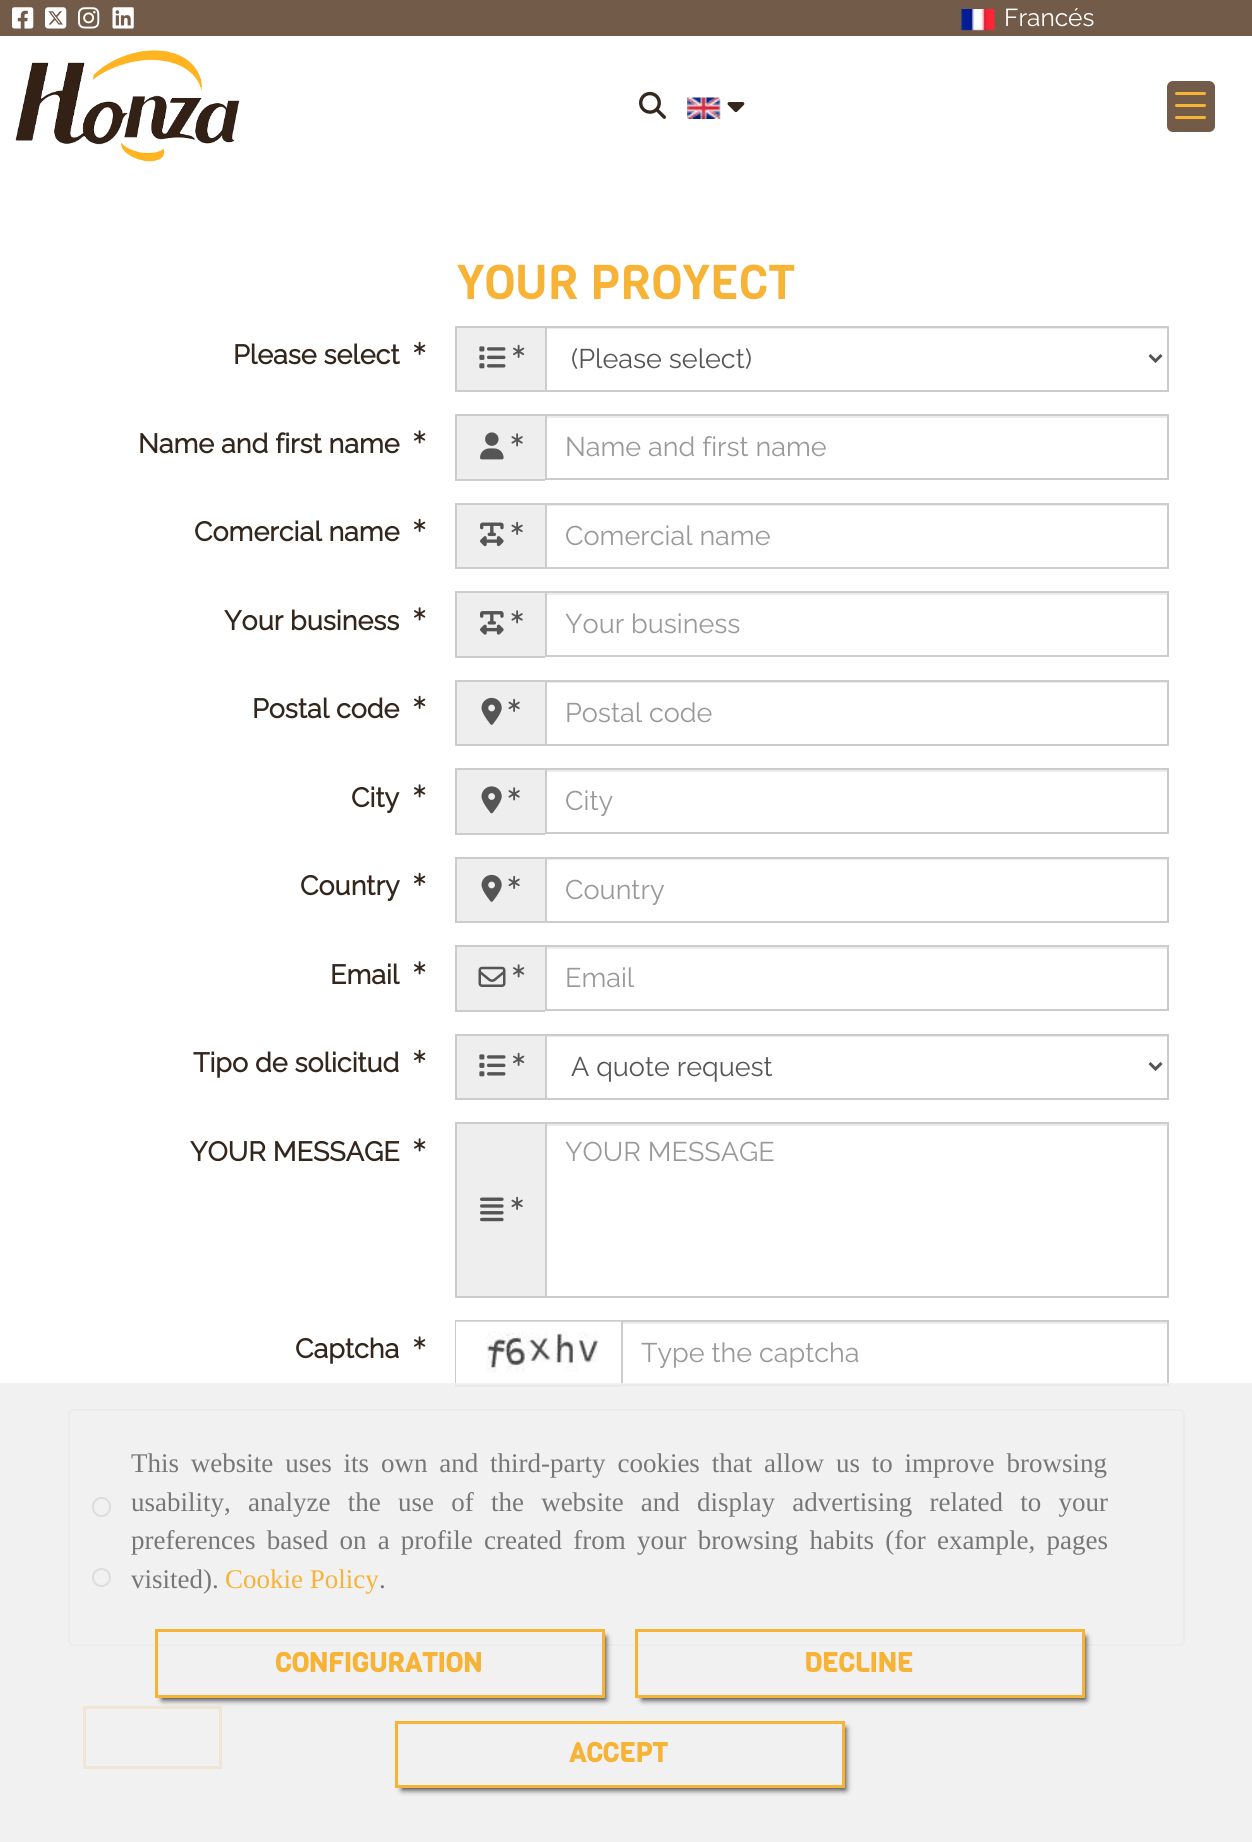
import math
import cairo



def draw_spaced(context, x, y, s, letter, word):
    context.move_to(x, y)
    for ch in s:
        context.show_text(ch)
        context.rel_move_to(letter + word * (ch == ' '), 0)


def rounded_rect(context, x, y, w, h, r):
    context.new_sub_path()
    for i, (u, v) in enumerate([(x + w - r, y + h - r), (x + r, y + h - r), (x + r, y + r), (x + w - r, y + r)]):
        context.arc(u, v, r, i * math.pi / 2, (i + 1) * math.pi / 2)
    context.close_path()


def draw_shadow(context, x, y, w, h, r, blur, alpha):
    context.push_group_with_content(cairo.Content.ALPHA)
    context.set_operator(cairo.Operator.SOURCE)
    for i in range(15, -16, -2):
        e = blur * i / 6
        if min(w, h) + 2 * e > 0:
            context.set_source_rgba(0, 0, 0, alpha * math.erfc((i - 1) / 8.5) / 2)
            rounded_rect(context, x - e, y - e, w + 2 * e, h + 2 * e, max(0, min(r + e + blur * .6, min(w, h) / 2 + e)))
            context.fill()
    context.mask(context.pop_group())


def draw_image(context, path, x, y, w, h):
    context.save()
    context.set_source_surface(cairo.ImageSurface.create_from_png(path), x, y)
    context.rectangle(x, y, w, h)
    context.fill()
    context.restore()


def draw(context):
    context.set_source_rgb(1, 1, 1)
    context.paint()
    context.set_source_rgb(115 / 255, 91 / 255, 73 / 255)
    context.rectangle(0, 0, 1252, 36)
    context.fill()
    draw_image(context, "images/1.png", 12, 7, 22, 22)
    draw_image(context, "images/2.png", 45, 7, 22, 22)
    draw_image(context, "images/3.png", 78, 7, 22, 22)
    draw_image(context, "images/4.png", 112, 7, 22, 22)
    draw_image(context, "images/5.png", 961, 9, 34, 22)
    draw_image(context, "images/6.png", 15, 50, 225, 112)
    draw_image(context, "images/7.png", 639, 91, 27, 28)
    draw_image(context, "images/8.png", 687, 97, 34, 22)
    draw_image(context, "images/9.png", 727, 102, 18, 11)
    rounded_rect(context, 1167, 81, 48, 51, 6)
    context.fill()
    context.set_source_rgb(247 / 255, 179 / 255, 54 / 255)
    rounded_rect(context, 1175, 104, 31, 3, 1.5)
    context.fill()
    rounded_rect(context, 1175, 92, 31, 3, 1.5)
    context.fill()
    rounded_rect(context, 1175, 116, 31, 3, 1.5)
    context.fill()
    draw_image(context, "images/10.png", 414, 341, 12, 14)
    context.set_source_rgb(238 / 255, 238 / 255, 238 / 255)
    context.rectangle(457, 328, 88, 62)
    context.fill()
    context.set_source_rgb(204 / 255, 204 / 255, 204 / 255)
    context.rectangle(455, 326, 90, 2)
    context.fill()
    context.rectangle(455, 390, 90, 2)
    context.fill()
    context.rectangle(455, 326, 2, 66)
    context.fill()
    draw_image(context, "images/11.png", 479, 346, 27, 23)
    draw_image(context, "images/12.png", 513, 344, 12, 14)
    context.set_source_rgb(236 / 255, 236 / 255, 236 / 255)
    context.rectangle(546, 328, 621, 1)
    context.fill()
    context.rectangle(546, 327, 622, 64)
    context.set_source_rgb(204 / 255, 204 / 255, 204 / 255)
    context.stroke()
    context.new_path()
    context.move_to(1149.5, 355)
    context.line_to(1155.5, 361)
    context.line_to(1161.5, 355)
    context.set_source_rgb(85 / 255, 85 / 255, 85 / 255)
    context.set_line_width(3)
    context.stroke()
    draw_image(context, "images/13.png", 414, 430, 12, 14)
    context.set_source_rgb(238 / 255, 238 / 255, 238 / 255)
    context.rectangle(457, 416, 88, 63)
    context.fill()
    context.set_source_rgb(204 / 255, 204 / 255, 204 / 255)
    context.rectangle(455, 414, 90, 2)
    context.fill()
    context.rectangle(455, 479, 90, 2)
    context.fill()
    context.rectangle(455, 414, 2, 66)
    context.fill()
    draw_image(context, "images/14.png", 480, 432, 24, 28)
    draw_image(context, "images/15.png", 511, 433, 12, 14)
    context.set_source_rgb(236 / 255, 236 / 255, 236 / 255)
    context.rectangle(546, 416, 621, 2)
    context.fill()
    context.rectangle(546, 415, 622, 64)
    context.set_source_rgb(204 / 255, 204 / 255, 204 / 255)
    context.set_line_width(2)
    context.stroke()
    draw_image(context, "images/10.png", 414, 518, 12, 14)
    context.set_source_rgb(238 / 255, 238 / 255, 238 / 255)
    context.rectangle(457, 505, 88, 62)
    context.fill()
    context.set_source_rgb(204 / 255, 204 / 255, 204 / 255)
    context.rectangle(455, 503, 90, 2)
    context.fill()
    context.rectangle(455, 567, 90, 2)
    context.fill()
    context.rectangle(455, 503, 2, 66)
    context.fill()
    draw_image(context, "images/16.png", 480, 522, 24, 25)
    draw_image(context, "images/17.png", 511, 521, 12, 14)
    context.set_source_rgb(236 / 255, 236 / 255, 236 / 255)
    context.rectangle(546, 505, 621, 1)
    context.fill()
    context.rectangle(546, 504, 622, 64)
    context.set_source_rgb(204 / 255, 204 / 255, 204 / 255)
    context.stroke()
    draw_image(context, "images/13.png", 414, 607, 12, 14)
    context.set_source_rgb(238 / 255, 238 / 255, 238 / 255)
    context.rectangle(457, 593, 88, 63)
    context.fill()
    context.set_source_rgb(204 / 255, 204 / 255, 204 / 255)
    context.rectangle(455, 591, 90, 2)
    context.fill()
    context.rectangle(455, 656, 90, 2)
    context.fill()
    context.rectangle(455, 591, 2, 66)
    context.fill()
    draw_image(context, "images/18.png", 480, 611, 24, 24)
    draw_image(context, "images/15.png", 511, 610, 12, 14)
    context.set_source_rgb(236 / 255, 236 / 255, 236 / 255)
    context.rectangle(546, 593, 621, 2)
    context.fill()
    context.rectangle(546, 592, 622, 64)
    context.set_source_rgb(204 / 255, 204 / 255, 204 / 255)
    context.stroke()
    draw_image(context, "images/10.png", 414, 695, 12, 14)
    context.set_source_rgb(238 / 255, 238 / 255, 238 / 255)
    context.rectangle(457, 682, 88, 62)
    context.fill()
    context.set_source_rgb(204 / 255, 204 / 255, 204 / 255)
    context.rectangle(455, 680, 90, 2)
    context.fill()
    context.rectangle(455, 744, 90, 2)
    context.fill()
    context.rectangle(455, 680, 2, 66)
    context.fill()
    draw_image(context, "images/19.png", 481, 697, 21, 28)
    draw_image(context, "images/17.png", 508, 698, 12, 14)
    context.set_source_rgb(236 / 255, 236 / 255, 236 / 255)
    context.rectangle(546, 682, 621, 1)
    context.fill()
    context.rectangle(546, 681, 622, 64)
    context.set_source_rgb(204 / 255, 204 / 255, 204 / 255)
    context.stroke()
    draw_image(context, "images/13.png", 414, 784, 12, 14)
    context.set_source_rgb(238 / 255, 238 / 255, 238 / 255)
    context.rectangle(457, 770, 88, 63)
    context.fill()
    context.set_source_rgb(204 / 255, 204 / 255, 204 / 255)
    context.rectangle(455, 768, 90, 2)
    context.fill()
    context.rectangle(455, 833, 90, 2)
    context.fill()
    context.rectangle(455, 768, 2, 66)
    context.fill()
    draw_image(context, "images/20.png", 481, 786, 21, 28)
    draw_image(context, "images/15.png", 508, 787, 12, 14)
    context.set_source_rgb(236 / 255, 236 / 255, 236 / 255)
    context.rectangle(546, 770, 621, 2)
    context.fill()
    context.rectangle(546, 769, 622, 64)
    context.set_source_rgb(204 / 255, 204 / 255, 204 / 255)
    context.stroke()
    draw_image(context, "images/10.png", 414, 872, 12, 14)
    context.set_source_rgb(238 / 255, 238 / 255, 238 / 255)
    context.rectangle(457, 859, 88, 62)
    context.fill()
    context.set_source_rgb(204 / 255, 204 / 255, 204 / 255)
    context.rectangle(455, 857, 90, 2)
    context.fill()
    context.rectangle(455, 921, 90, 2)
    context.fill()
    context.rectangle(455, 857, 2, 66)
    context.fill()
    draw_image(context, "images/19.png", 481, 874, 21, 28)
    draw_image(context, "images/17.png", 508, 875, 12, 14)
    context.set_source_rgb(236 / 255, 236 / 255, 236 / 255)
    context.rectangle(546, 859, 621, 1)
    context.fill()
    context.rectangle(546, 858, 622, 64)
    context.set_source_rgb(204 / 255, 204 / 255, 204 / 255)
    context.stroke()
    draw_image(context, "images/13.png", 414, 961, 12, 14)
    context.set_source_rgb(238 / 255, 238 / 255, 238 / 255)
    context.rectangle(457, 947, 88, 63)
    context.fill()
    context.set_source_rgb(204 / 255, 204 / 255, 204 / 255)
    context.rectangle(455, 945, 90, 2)
    context.fill()
    context.rectangle(455, 1010, 90, 2)
    context.fill()
    context.rectangle(455, 945, 2, 66)
    context.fill()
    draw_image(context, "images/21.png", 478, 966, 28, 21)
    draw_image(context, "images/22.png", 513, 964, 12, 14)
    context.set_source_rgb(236 / 255, 236 / 255, 236 / 255)
    context.rectangle(546, 947, 621, 2)
    context.fill()
    context.rectangle(546, 946, 622, 64)
    context.set_source_rgb(204 / 255, 204 / 255, 204 / 255)
    context.stroke()
    draw_image(context, "images/10.png", 414, 1049, 12, 14)
    context.set_source_rgb(238 / 255, 238 / 255, 238 / 255)
    context.rectangle(457, 1036, 88, 62)
    context.fill()
    context.set_source_rgb(204 / 255, 204 / 255, 204 / 255)
    context.rectangle(455, 1034, 90, 2)
    context.fill()
    context.rectangle(455, 1098, 90, 2)
    context.fill()
    context.rectangle(455, 1034, 2, 66)
    context.fill()
    draw_image(context, "images/11.png", 479, 1054, 27, 23)
    draw_image(context, "images/12.png", 513, 1052, 12, 14)
    context.set_source_rgb(236 / 255, 236 / 255, 236 / 255)
    context.rectangle(546, 1036, 621, 1)
    context.fill()
    context.rectangle(546, 1035, 622, 64)
    context.set_source_rgb(204 / 255, 204 / 255, 204 / 255)
    context.stroke()
    context.new_path()
    context.move_to(1149.5, 1063)
    context.line_to(1155.5, 1069)
    context.line_to(1161.5, 1063)
    context.set_source_rgb(85 / 255, 85 / 255, 85 / 255)
    context.set_line_width(3)
    context.stroke()
    draw_image(context, "images/13.png", 414, 1138, 12, 14)
    context.set_source_rgb(238 / 255, 238 / 255, 238 / 255)
    context.rectangle(457, 1124, 88, 172)
    context.fill()
    context.set_source_rgb(204 / 255, 204 / 255, 204 / 255)
    context.rectangle(455, 1122, 90, 2)
    context.fill()
    context.rectangle(455, 1296, 90, 2)
    context.fill()
    context.rectangle(455, 1122, 2, 176)
    context.fill()
    draw_image(context, "images/23.png", 480, 1197, 24, 25)
    draw_image(context, "images/17.png", 511, 1196, 12, 14)
    context.set_source_rgb(236 / 255, 236 / 255, 236 / 255)
    context.rectangle(546, 1124, 621, 2)
    context.fill()
    context.rectangle(546, 1123, 622, 174)
    context.set_source_rgb(204 / 255, 204 / 255, 204 / 255)
    context.set_line_width(2)
    context.stroke()
    draw_image(context, "images/13.png", 414, 1336, 12, 14)
    context.set_source_rgb(238 / 255, 238 / 255, 238 / 255)
    context.rectangle(457, 1384, 164, 1)
    context.fill()
    context.set_source_rgb(204 / 255, 204 / 255, 204 / 255)
    context.rectangle(455, 1320, 166, 2)
    context.fill()
    context.rectangle(455, 1385, 166, 2)
    context.fill()
    context.rectangle(455, 1320, 2, 66)
    context.fill()
    draw_image(context, "images/24.png", 456, 1321, 165, 64)
    context.set_source_rgb(236 / 255, 236 / 255, 236 / 255)
    context.rectangle(623, 1322, 544, 2)
    context.fill()
    context.rectangle(622, 1321, 546, 64)
    context.set_source_rgb(204 / 255, 204 / 255, 204 / 255)
    context.stroke()
    context.set_source_rgb(0, 0, 0)
    draw_shadow(context, 68, 1410, 1117, 237, 6, 1, 0.05)
    context.set_source_rgb(1, 1, 1)
    rounded_rect(context, 69, 1410, 1115, 235, 5)
    context.fill_preserve()
    context.set_source_rgb(221 / 255, 221 / 255, 221 / 255)
    context.stroke()
    rounded_rect(context, 93, 1498, 17, 18, 8.5)
    context.set_source_rgb(118 / 255, 118 / 255, 118 / 255)
    context.stroke()
    context.arc(101.5, 1577.5, 8.5, 0, 2 * math.pi)
    context.stroke()
    context.rectangle(84.5, 1707.5, 136, 60)
    context.set_source_rgb(247 / 255, 179 / 255, 54 / 255)
    context.set_line_width(3)
    context.stroke()
    context.set_source_rgba(238 / 255, 238 / 255, 238 / 255, 0.85)
    context.rectangle(0, 1383, 1252, 459)
    context.fill()
    context.save()
    context.set_fill_rule(cairo.FillRule.EVEN_ODD)
    context.new_path()
    context.move_to(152, 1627)
    context.line_to(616, 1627)
    context.line_to(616, 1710)
    context.line_to(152, 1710)
    context.close_path()
    context.move_to(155, 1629)
    context.line_to(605, 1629)
    context.line_to(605, 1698)
    context.line_to(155, 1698)
    context.close_path()
    context.clip()
    context.set_source_rgb(0, 0, 0)
    draw_shadow(context, 162, 1637, 444, 63, 0, 3, 0.75)
    context.restore()
    context.rectangle(156.5, 1630.5, 447, 66)
    context.set_source_rgb(247 / 255, 179 / 255, 54 / 255)
    context.stroke()
    context.save()
    context.set_fill_rule(cairo.FillRule.EVEN_ODD)
    context.new_path()
    context.move_to(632, 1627)
    context.line_to(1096, 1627)
    context.line_to(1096, 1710)
    context.line_to(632, 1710)
    context.close_path()
    context.move_to(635, 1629)
    context.line_to(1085, 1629)
    context.line_to(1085, 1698)
    context.line_to(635, 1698)
    context.close_path()
    context.clip()
    context.set_source_rgb(0, 0, 0)
    draw_shadow(context, 642, 1637, 444, 63, 0, 3, 0.75)
    context.restore()
    context.rectangle(636.5, 1630.5, 447, 66)
    context.stroke()
    context.save()
    context.set_fill_rule(cairo.FillRule.EVEN_ODD)
    context.new_path()
    context.move_to(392, 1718)
    context.line_to(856, 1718)
    context.line_to(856, 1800)
    context.line_to(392, 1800)
    context.close_path()
    context.move_to(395, 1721)
    context.line_to(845, 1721)
    context.line_to(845, 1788)
    context.line_to(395, 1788)
    context.close_path()
    context.clip()
    context.set_source_rgb(0, 0, 0)
    draw_shadow(context, 402, 1728, 444, 62, 0, 3, 0.75)
    context.restore()
    context.rectangle(396.5, 1722.5, 447, 64)
    context.stroke()
    context.select_font_face("Raleway Thin")
    context.set_font_size(24.5)
    context.set_source_rgb(1, 1, 1)
    context.move_to(1004, 26)
    context.show_text("Francés")
    context.select_font_face("Viga")
    context.set_font_size(48)
    context.set_source_rgb(247 / 255, 179 / 255, 54 / 255)
    context.move_to(457, 299)
    context.show_text("YOUR PROYECT")
    context.select_font_face("Raleway", cairo.FontSlant.NORMAL, cairo.FontWeight.BOLD)
    context.set_font_size(27)
    context.set_source_rgb(51 / 255, 38 / 255, 29 / 255)
    context.move_to(233, 364)
    context.show_text("Please select")
    context.select_font_face("Raleway Thin")
    context.set_source_rgb(85 / 255, 85 / 255, 85 / 255)
    context.move_to(571, 368)
    context.show_text("(Please select)")
    context.select_font_face("Raleway", cairo.FontSlant.NORMAL, cairo.FontWeight.BOLD)
    context.set_source_rgb(51 / 255, 38 / 255, 29 / 255)
    context.move_to(138, 453)
    context.show_text("Name and first name")
    context.select_font_face("Raleway Thin")
    context.set_source_rgb(153 / 255, 153 / 255, 153 / 255)
    context.move_to(565, 456)
    context.show_text("Name and first name")
    context.select_font_face("Raleway", cairo.FontSlant.NORMAL, cairo.FontWeight.BOLD)
    context.set_source_rgb(51 / 255, 38 / 255, 29 / 255)
    context.move_to(194, 541)
    context.show_text("Comercial name")
    context.select_font_face("Raleway Thin")
    context.set_source_rgb(153 / 255, 153 / 255, 153 / 255)
    context.move_to(565, 545)
    context.show_text("Comercial name")
    context.select_font_face("Raleway", cairo.FontSlant.NORMAL, cairo.FontWeight.BOLD)
    context.set_source_rgb(51 / 255, 38 / 255, 29 / 255)
    context.move_to(224, 630)
    context.show_text("Your business")
    context.select_font_face("Raleway Thin")
    context.set_source_rgb(153 / 255, 153 / 255, 153 / 255)
    context.move_to(565, 633)
    context.show_text("Your business")
    context.select_font_face("Raleway", cairo.FontSlant.NORMAL, cairo.FontWeight.BOLD)
    context.set_source_rgb(51 / 255, 38 / 255, 29 / 255)
    context.move_to(252, 718)
    context.show_text("Postal code")
    context.select_font_face("Raleway Thin")
    context.set_source_rgb(153 / 255, 153 / 255, 153 / 255)
    context.move_to(565, 722)
    context.show_text("Postal code")
    context.select_font_face("Raleway", cairo.FontSlant.NORMAL, cairo.FontWeight.BOLD)
    context.set_source_rgb(51 / 255, 38 / 255, 29 / 255)
    context.move_to(351, 807)
    context.show_text("City")
    context.select_font_face("Raleway Thin")
    context.set_source_rgb(153 / 255, 153 / 255, 153 / 255)
    context.move_to(565, 810)
    context.show_text("City")
    context.select_font_face("Raleway", cairo.FontSlant.NORMAL, cairo.FontWeight.BOLD)
    context.set_source_rgb(51 / 255, 38 / 255, 29 / 255)
    context.move_to(300, 895)
    context.show_text("Country")
    context.select_font_face("Raleway Thin")
    context.set_source_rgb(153 / 255, 153 / 255, 153 / 255)
    context.move_to(565, 899)
    context.show_text("Country")
    context.select_font_face("Raleway", cairo.FontSlant.NORMAL, cairo.FontWeight.BOLD)
    context.set_source_rgb(51 / 255, 38 / 255, 29 / 255)
    context.move_to(330, 984)
    context.show_text("Email")
    context.select_font_face("Raleway Thin")
    context.set_source_rgb(153 / 255, 153 / 255, 153 / 255)
    context.move_to(565, 987)
    context.show_text("Email")
    context.select_font_face("Raleway", cairo.FontSlant.NORMAL, cairo.FontWeight.BOLD)
    context.set_source_rgb(51 / 255, 38 / 255, 29 / 255)
    context.move_to(193, 1072)
    context.show_text("Tipo de solicitud")
    context.select_font_face("Raleway Thin")
    context.set_source_rgb(85 / 255, 85 / 255, 85 / 255)
    context.move_to(571, 1076)
    context.show_text("A quote request")
    context.select_font_face("Raleway", cairo.FontSlant.NORMAL, cairo.FontWeight.BOLD)
    context.set_source_rgb(51 / 255, 38 / 255, 29 / 255)
    context.move_to(190, 1161)
    context.show_text("YOUR MESSAGE")
    context.select_font_face("Raleway Thin")
    context.set_source_rgb(153 / 255, 153 / 255, 153 / 255)
    context.move_to(565, 1161)
    context.show_text("YOUR MESSAGE")
    context.select_font_face("Raleway", cairo.FontSlant.NORMAL, cairo.FontWeight.BOLD)
    context.set_source_rgb(51 / 255, 38 / 255, 29 / 255)
    context.move_to(295, 1358)
    context.show_text("Captcha")
    context.select_font_face("Raleway Thin")
    context.set_source_rgb(153 / 255, 153 / 255, 153 / 255)
    context.move_to(641, 1362)
    context.show_text("Type the captcha")
    context.select_font_face("Liberation Serif")
    context.set_source_rgb(119 / 255, 119 / 255, 119 / 255)
    draw_spaced(context, 131, 1472, "This website uses its own and third-party cookies that allow us to improve browsing", 0, 5.1)
    draw_spaced(context, 131, 1511, "usability, analyze the use of the website and display advertising related to your", 0, 10.5)
    draw_spaced(context, 131, 1549, "preferences based on a profile created from your browsing habits (for example, pages", 0, 4.5)
    context.move_to(131, 1588)
    context.show_text("visited).")
    context.set_source_rgb(247 / 255, 179 / 255, 54 / 255)
    context.move_to(225, 1588)
    context.show_text("Cookie Policy")
    context.set_source_rgb(119 / 255, 119 / 255, 119 / 255)
    context.move_to(379, 1588)
    context.show_text(".")
    context.select_font_face("Viga", cairo.FontSlant.NORMAL, cairo.FontWeight.BOLD)
    context.set_source_rgb(247 / 255, 179 / 255, 54 / 255)
    context.move_to(275, 1672)
    context.show_text("CONFIGURATION")
    context.move_to(804, 1672)
    context.show_text("DECLINE")
    context.move_to(569, 1762)
    context.show_text("ACCEPT")


surface = cairo.ImageSurface(cairo.Format.RGB24, 1252, 1842)
context = cairo.Context(surface)
options = cairo.FontOptions()
options.set_hint_metrics(cairo.HintMetrics.OFF)
options.set_hint_style(cairo.HintStyle.NONE)
context.set_font_options(options)
context.set_miter_limit(4)
draw(context)
surface.write_to_png("out.png")
